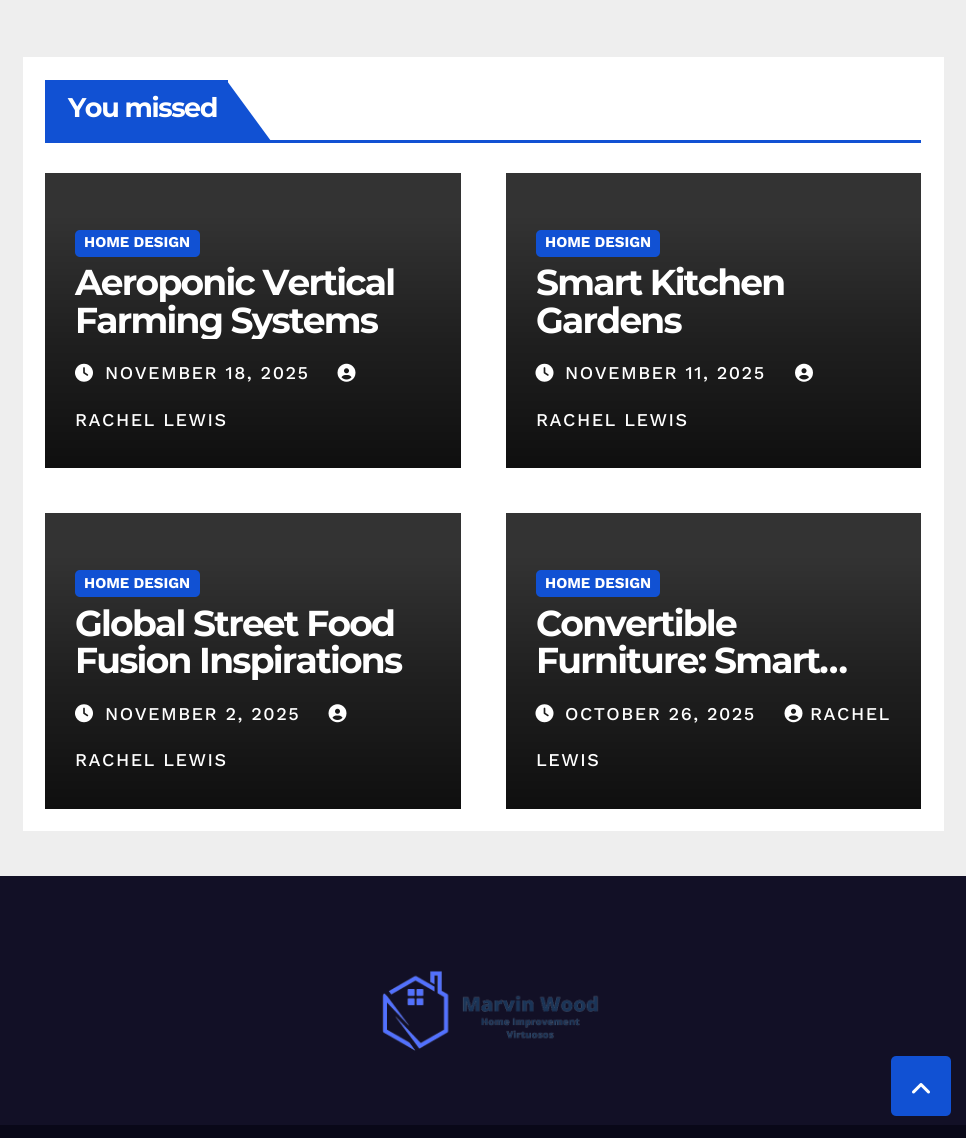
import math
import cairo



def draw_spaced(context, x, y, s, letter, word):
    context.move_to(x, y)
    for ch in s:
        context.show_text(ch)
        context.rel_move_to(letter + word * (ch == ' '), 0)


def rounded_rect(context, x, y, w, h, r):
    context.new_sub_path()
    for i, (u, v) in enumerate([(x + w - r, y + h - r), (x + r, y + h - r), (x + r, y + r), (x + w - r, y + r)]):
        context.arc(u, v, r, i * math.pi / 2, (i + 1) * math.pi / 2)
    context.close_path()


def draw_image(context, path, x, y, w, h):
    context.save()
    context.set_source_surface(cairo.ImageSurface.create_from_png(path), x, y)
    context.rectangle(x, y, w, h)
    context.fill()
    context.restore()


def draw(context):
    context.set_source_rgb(238 / 255, 238 / 255, 238 / 255)
    context.paint()
    context.set_source_rgb(1, 1, 1)
    context.rectangle(23, 57, 921, 774)
    context.fill()
    context.set_source_rgb(17 / 255, 81 / 255, 211 / 255)
    context.rectangle(45, 140, 876, 3)
    context.fill()
    context.rectangle(45, 80, 183, 60)
    context.fill()
    context.new_path()
    context.move_to(227, 81)
    context.line_to(227, 141)
    context.line_to(271, 141)
    context.close_path()
    context.fill()
    context.set_source_rgb(51 / 255, 51 / 255, 51 / 255)
    context.rectangle(45, 173, 416, 42)
    context.fill()
    gradient = cairo.LinearGradient(253, 215, 253, 468)
    gradient.add_color_stop_rgba(0, 51 / 255, 51 / 255, 51 / 255, 1)
    gradient.add_color_stop_rgba(0.5, 31 / 255, 31 / 255, 31 / 255, 1)
    gradient.add_color_stop_rgba(1, 15 / 255, 15 / 255, 15 / 255, 1)
    context.set_source(gradient)
    context.rectangle(45, 215, 416, 253)
    context.fill()
    context.set_source_rgb(17 / 255, 81 / 255, 211 / 255)
    rounded_rect(context, 75, 230, 125, 27, 5)
    context.fill()
    draw_image(context, "images/1.png", 75, 363, 18, 19)
    draw_image(context, "images/2.png", 337, 363, 19, 19)
    context.set_source_rgb(51 / 255, 51 / 255, 51 / 255)
    context.rectangle(506, 173, 415, 42)
    context.fill()
    gradient = cairo.LinearGradient(713, 215, 713, 468)
    gradient.add_color_stop_rgba(0, 51 / 255, 51 / 255, 51 / 255, 1)
    gradient.add_color_stop_rgba(0.5, 31 / 255, 31 / 255, 31 / 255, 1)
    gradient.add_color_stop_rgba(1, 15 / 255, 15 / 255, 15 / 255, 1)
    context.set_source(gradient)
    context.rectangle(506, 215, 415, 253)
    context.fill()
    context.set_source_rgb(17 / 255, 81 / 255, 211 / 255)
    rounded_rect(context, 536, 230, 124, 27, 5)
    context.fill()
    draw_image(context, "images/3.png", 535, 363, 19, 19)
    draw_image(context, "images/4.png", 795, 363, 18, 19)
    context.set_source_rgb(51 / 255, 51 / 255, 51 / 255)
    context.rectangle(45, 513, 416, 42)
    context.fill()
    gradient = cairo.LinearGradient(253, 555, 253, 809)
    gradient.add_color_stop_rgba(0, 51 / 255, 51 / 255, 51 / 255, 1)
    gradient.add_color_stop_rgba(0.5, 31 / 255, 31 / 255, 31 / 255, 1)
    gradient.add_color_stop_rgba(1, 15 / 255, 15 / 255, 15 / 255, 1)
    context.set_source(gradient)
    context.rectangle(45, 555, 416, 254)
    context.fill()
    context.set_source_rgb(17 / 255, 81 / 255, 211 / 255)
    rounded_rect(context, 75, 570, 125, 27, 5)
    context.fill()
    draw_image(context, "images/5.png", 75, 704, 18, 19)
    draw_image(context, "images/6.png", 328, 704, 19, 19)
    context.set_source_rgb(51 / 255, 51 / 255, 51 / 255)
    context.rectangle(506, 513, 415, 42)
    context.fill()
    gradient = cairo.LinearGradient(713, 555, 713, 809)
    gradient.add_color_stop_rgba(0, 51 / 255, 51 / 255, 51 / 255, 1)
    gradient.add_color_stop_rgba(0.5, 31 / 255, 31 / 255, 31 / 255, 1)
    gradient.add_color_stop_rgba(1, 15 / 255, 15 / 255, 15 / 255, 1)
    context.set_source(gradient)
    context.rectangle(506, 555, 415, 254)
    context.fill()
    context.set_source_rgb(17 / 255, 81 / 255, 211 / 255)
    rounded_rect(context, 536, 570, 124, 27, 5)
    context.fill()
    draw_image(context, "images/6.png", 784, 704, 19, 19)
    draw_image(context, "images/7.png", 535, 704, 19, 19)
    context.set_source_rgb(18 / 255, 16 / 255, 38 / 255)
    context.rectangle(0, 876, 966, 249)
    context.fill()
    draw_image(context, "images/8.png", 382, 970, 217, 81)
    context.set_source_rgb(9 / 255, 8 / 255, 24 / 255)
    context.rectangle(0, 1125, 966, 13)
    context.fill()
    context.set_source_rgb(17 / 255, 81 / 255, 211 / 255)
    rounded_rect(context, 892.5, 1057.5, 57, 57, 3.5)
    context.fill_preserve()
    context.set_line_width(3)
    context.stroke()
    draw_image(context, "images/9.png", 912, 1083, 18, 11)
    context.select_font_face("Montserrat", cairo.FontSlant.NORMAL, cairo.FontWeight.BOLD)
    context.set_font_size(27)
    context.set_source_rgb(1, 1, 1)
    draw_spaced(context, 68, 117, "You missed", -1.4, 0)
    context.select_font_face("Work Sans", cairo.FontSlant.NORMAL, cairo.FontWeight.BOLD)
    context.set_font_size(15)
    context.move_to(84, 247)
    context.show_text("HOME DESIGN")
    context.select_font_face("Montserrat", cairo.FontSlant.NORMAL, cairo.FontWeight.BOLD)
    context.set_font_size(36)
    draw_spaced(context, 75, 295, "Aeroponic Vertical", -1.75, 0)
    context.save()
    context.rectangle(75, 264, 356, 75)
    context.clip()
    draw_spaced(context, 75, 333, "Farming Systems", -1.75, 0)
    context.restore()
    context.select_font_face("Work Sans Medium")
    context.set_font_size(18)
    draw_spaced(context, 105, 379, "NOVEMBER 18, 2025", 1.5, 0)
    draw_spaced(context, 75, 426, "RACHEL LEWIS", 1.5, 0)
    context.select_font_face("Work Sans", cairo.FontSlant.NORMAL, cairo.FontWeight.BOLD)
    context.set_font_size(15)
    context.move_to(545, 247)
    context.show_text("HOME DESIGN")
    context.select_font_face("Montserrat", cairo.FontSlant.NORMAL, cairo.FontWeight.BOLD)
    context.set_font_size(36)
    draw_spaced(context, 536, 295, "Smart Kitchen", -1.75, 0)
    draw_spaced(context, 536, 333, "Gardens", -1.75, 0)
    context.select_font_face("Work Sans Medium")
    context.set_font_size(18)
    draw_spaced(context, 565, 379, "NOVEMBER 11, 2025", 1.5, 0)
    draw_spaced(context, 536, 426, "RACHEL LEWIS", 1.5, 0)
    context.select_font_face("Work Sans", cairo.FontSlant.NORMAL, cairo.FontWeight.BOLD)
    context.set_font_size(15)
    context.move_to(84, 588)
    context.show_text("HOME DESIGN")
    context.select_font_face("Montserrat", cairo.FontSlant.NORMAL, cairo.FontWeight.BOLD)
    context.set_font_size(36)
    draw_spaced(context, 75, 636, "Global Street Food", -1.75, 0)
    draw_spaced(context, 75, 673, "Fusion Inspirations", -1.75, 0)
    context.select_font_face("Work Sans Medium")
    context.set_font_size(18)
    draw_spaced(context, 105, 720, "NOVEMBER 2, 2025", 1.5, 0)
    draw_spaced(context, 75, 766, "RACHEL LEWIS", 1.5, 0)
    context.select_font_face("Work Sans", cairo.FontSlant.NORMAL, cairo.FontWeight.BOLD)
    context.set_font_size(15)
    context.move_to(545, 588)
    context.show_text("HOME DESIGN")
    context.select_font_face("Montserrat", cairo.FontSlant.NORMAL, cairo.FontWeight.BOLD)
    context.set_font_size(36)
    draw_spaced(context, 536, 636, "Convertible", -1.75, 0)
    draw_spaced(context, 536, 673, "Furniture: Smart…", -1.75, 0)
    context.select_font_face("Work Sans Medium")
    context.set_font_size(18)
    draw_spaced(context, 810, 720, "RACHEL", 1.5, 0)
    draw_spaced(context, 536, 766, "LEWIS", 1.5, 0)
    draw_spaced(context, 565, 720, "OCTOBER 26, 2025", 1.5, 0)


surface = cairo.ImageSurface(cairo.Format.RGB24, 966, 1138)
context = cairo.Context(surface)
options = cairo.FontOptions()
options.set_hint_metrics(cairo.HintMetrics.OFF)
options.set_hint_style(cairo.HintStyle.NONE)
context.set_font_options(options)
context.set_miter_limit(4)
draw(context)
surface.write_to_png("out.png")
